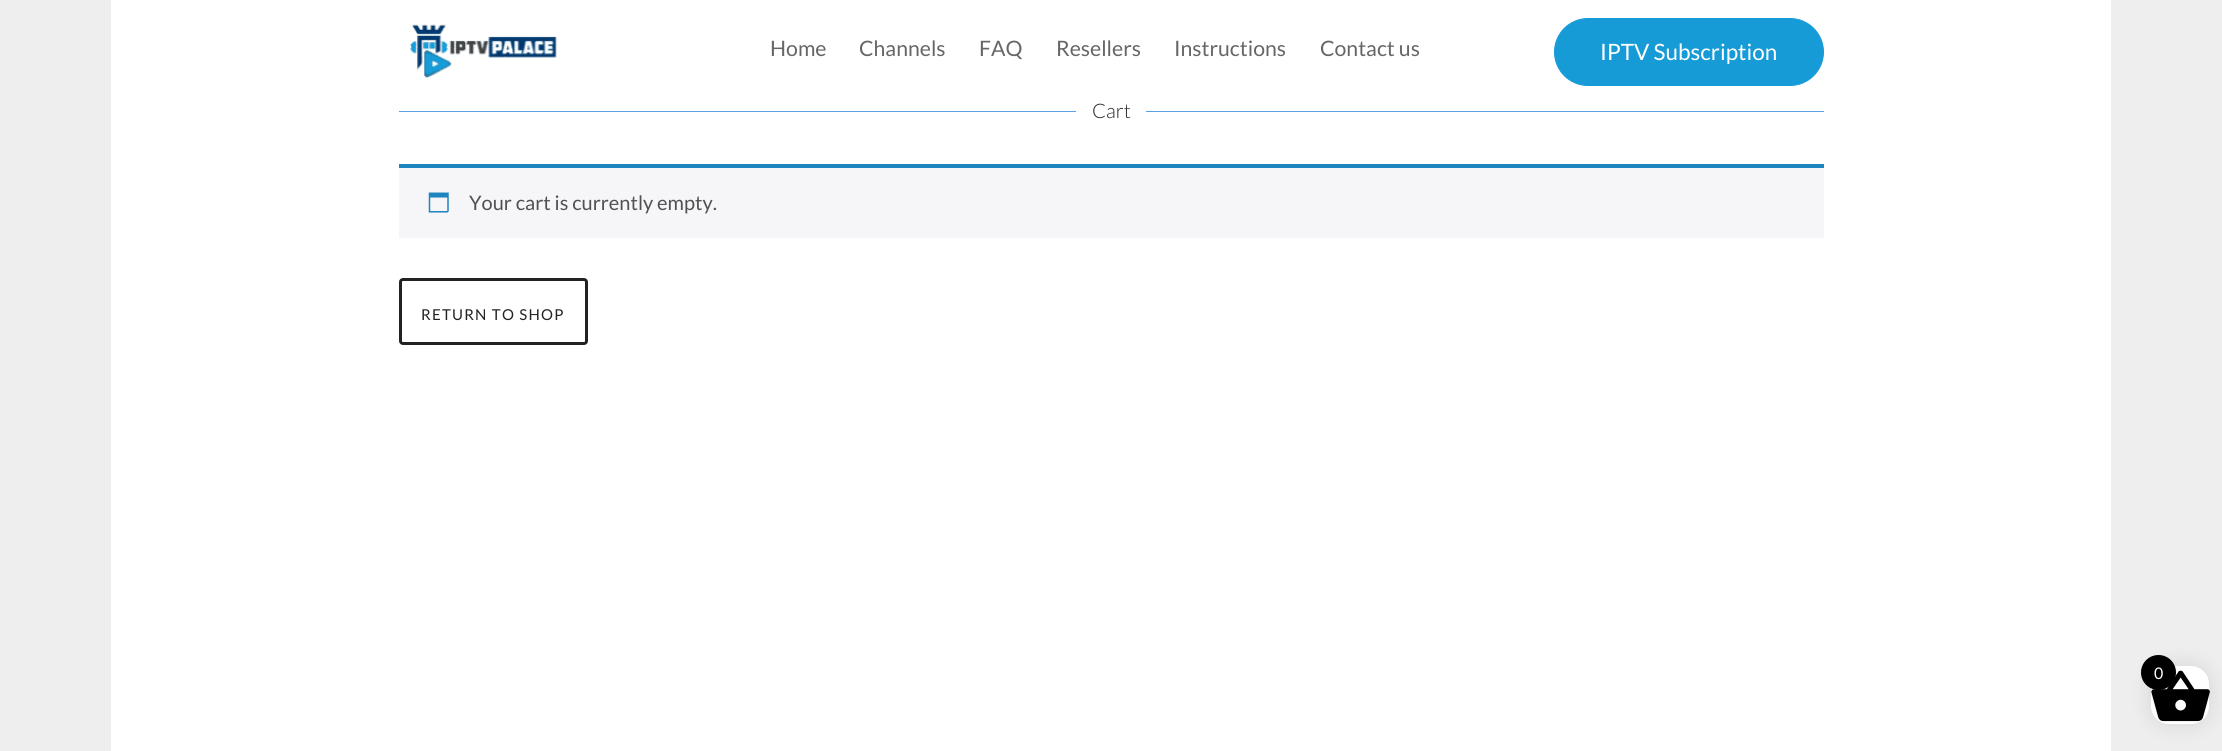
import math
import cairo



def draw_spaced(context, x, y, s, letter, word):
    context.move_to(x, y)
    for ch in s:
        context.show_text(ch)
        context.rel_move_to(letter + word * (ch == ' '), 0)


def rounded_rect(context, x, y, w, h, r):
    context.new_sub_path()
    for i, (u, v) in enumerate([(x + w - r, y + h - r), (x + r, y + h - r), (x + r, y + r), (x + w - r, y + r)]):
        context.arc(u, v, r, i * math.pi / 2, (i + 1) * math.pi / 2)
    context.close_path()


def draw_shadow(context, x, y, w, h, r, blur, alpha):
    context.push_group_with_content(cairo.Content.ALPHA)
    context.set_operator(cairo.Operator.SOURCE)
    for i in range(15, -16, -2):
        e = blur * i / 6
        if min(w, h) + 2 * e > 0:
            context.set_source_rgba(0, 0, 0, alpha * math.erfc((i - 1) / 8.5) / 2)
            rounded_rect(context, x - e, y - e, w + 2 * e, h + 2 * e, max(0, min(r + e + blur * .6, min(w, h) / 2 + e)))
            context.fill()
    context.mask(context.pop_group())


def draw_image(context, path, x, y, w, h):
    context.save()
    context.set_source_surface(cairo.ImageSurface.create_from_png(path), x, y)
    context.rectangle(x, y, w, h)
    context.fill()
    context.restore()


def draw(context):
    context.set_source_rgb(238 / 255, 238 / 255, 238 / 255)
    context.paint()
    context.set_source_rgb(1, 1, 1)
    context.rectangle(111, 0, 2000, 751)
    context.fill()
    draw_image(context, "images/1.png", 409, 24, 148, 55)
    context.set_source_rgb(23 / 255, 155 / 255, 215 / 255)
    rounded_rect(context, 1554.5, 18.5, 269, 67, 33.5)
    context.fill_preserve()
    context.set_line_width(1)
    context.stroke()
    context.set_source_rgb(90 / 255, 161 / 255, 227 / 255)
    context.rectangle(399, 111, 677, 1)
    context.fill()
    context.rectangle(1146, 111, 678, 1)
    context.fill()
    context.set_source_rgb(246 / 255, 245 / 255, 248 / 255)
    context.rectangle(399, 168, 1425, 70)
    context.fill()
    context.set_source_rgb(30 / 255, 133 / 255, 190 / 255)
    context.rectangle(399, 164, 1425, 4)
    context.fill()
    draw_image(context, "images/2.png", 428, 192, 21, 21)
    rounded_rect(context, 400.5, 279.5, 186, 64, 2.5)
    context.set_source_rgb(34 / 255, 34 / 255, 34 / 255)
    context.set_line_width(3)
    context.stroke()
    context.set_source_rgb(0, 0, 0)
    draw_shadow(context, 2149, 664, 62, 62, 20, 9.5, 0.1)
    context.set_source_rgb(1, 1, 1)
    rounded_rect(context, 2151, 666, 58, 58, 18)
    context.fill()
    draw_image(context, "images/3.png", 2151, 670, 59, 52)
    context.set_source_rgb(0, 0, 0)
    context.arc(2158.5, 672.5, 17.5, 0, 2 * math.pi)
    context.fill()
    context.select_font_face("Lato")
    context.set_font_size(21.25)
    context.set_source_rgb(102 / 255, 102 / 255, 102 / 255)
    context.move_to(770, 56)
    context.show_text("Home")
    context.move_to(859, 56)
    context.show_text("Channels")
    context.move_to(979, 56)
    context.show_text("FAQ")
    context.move_to(1056, 56)
    context.show_text("Resellers")
    context.move_to(1174, 56)
    context.show_text("Instructions")
    context.move_to(1320, 56)
    context.show_text("Contact us")
    context.set_font_size(22.5)
    context.set_source_rgb(1, 1, 1)
    context.move_to(1600, 60)
    context.show_text("IPTV Subscription")
    context.select_font_face("Lato Light")
    context.set_font_size(20)
    context.set_source_rgb(34 / 255, 34 / 255, 34 / 255)
    context.move_to(1092, 118)
    context.show_text("Cart")
    context.select_font_face("Lato")
    context.set_source_rgb(81 / 255, 81 / 255, 81 / 255)
    context.move_to(469, 210)
    context.show_text("Your cart is currently empty.")
    context.set_font_size(15)
    context.set_source_rgb(34 / 255, 34 / 255, 34 / 255)
    draw_spaced(context, 421, 320, "RETURN TO SHOP", 1.25, 0)
    context.set_font_size(16)
    context.set_source_rgb(1, 1, 1)
    context.move_to(2154, 679)
    context.show_text("0")


surface = cairo.ImageSurface(cairo.Format.RGB24, 2222, 751)
context = cairo.Context(surface)
options = cairo.FontOptions()
options.set_hint_metrics(cairo.HintMetrics.OFF)
options.set_hint_style(cairo.HintStyle.NONE)
context.set_font_options(options)
context.set_miter_limit(4)
draw(context)
surface.write_to_png("out.png")
